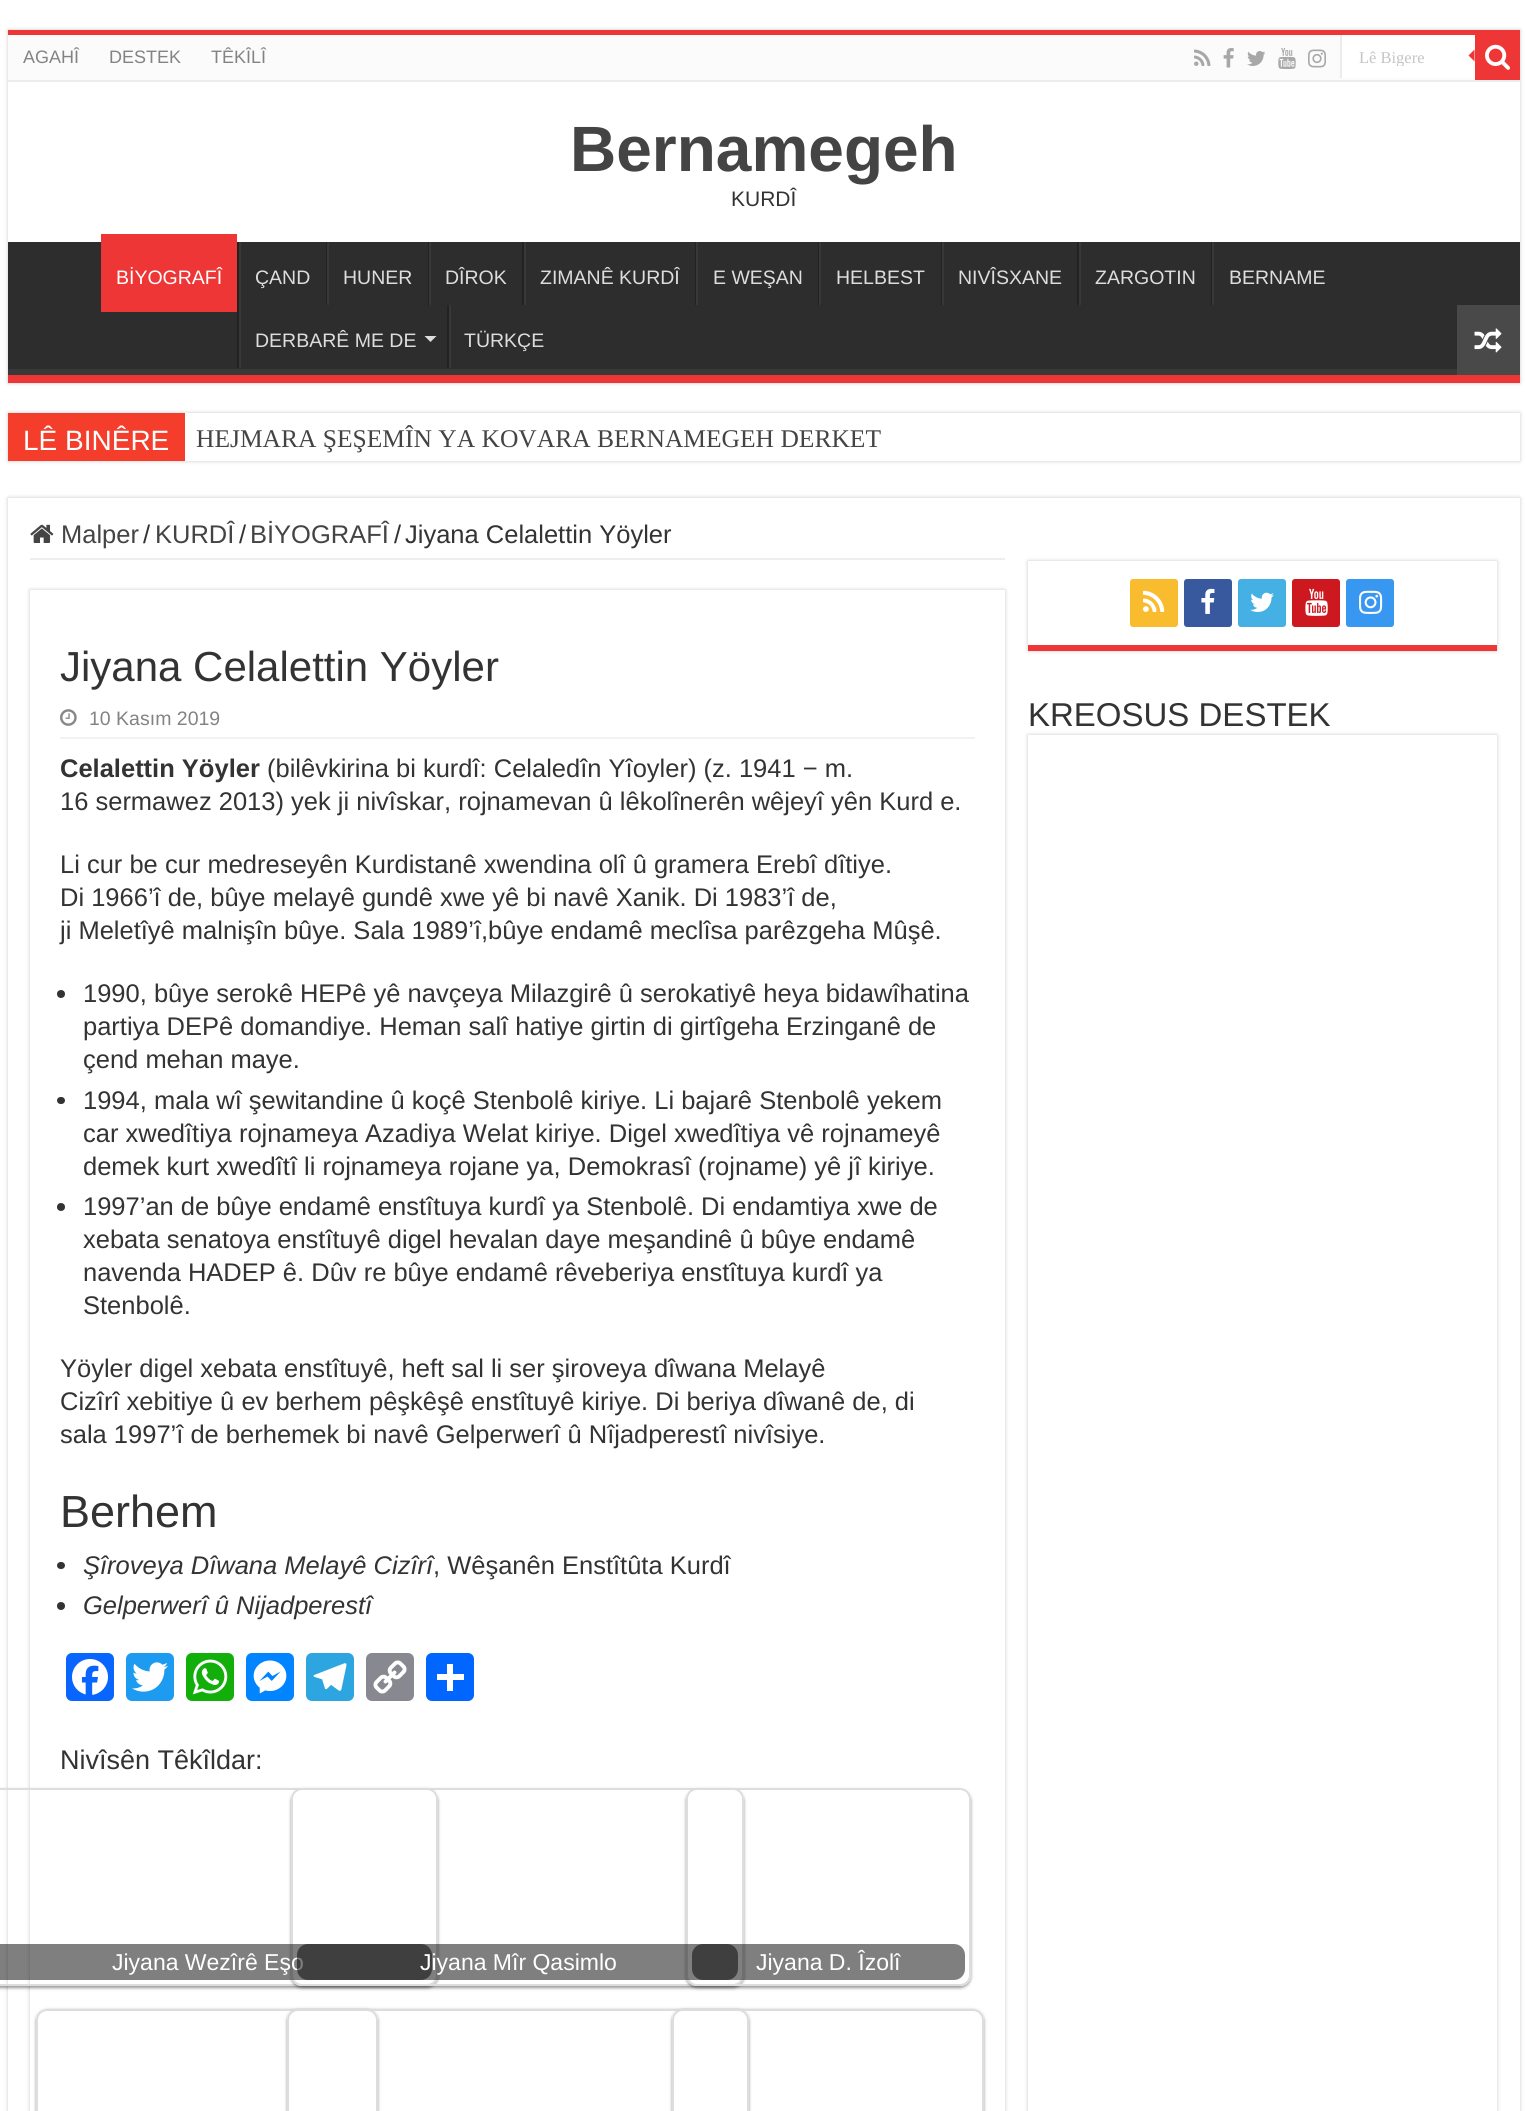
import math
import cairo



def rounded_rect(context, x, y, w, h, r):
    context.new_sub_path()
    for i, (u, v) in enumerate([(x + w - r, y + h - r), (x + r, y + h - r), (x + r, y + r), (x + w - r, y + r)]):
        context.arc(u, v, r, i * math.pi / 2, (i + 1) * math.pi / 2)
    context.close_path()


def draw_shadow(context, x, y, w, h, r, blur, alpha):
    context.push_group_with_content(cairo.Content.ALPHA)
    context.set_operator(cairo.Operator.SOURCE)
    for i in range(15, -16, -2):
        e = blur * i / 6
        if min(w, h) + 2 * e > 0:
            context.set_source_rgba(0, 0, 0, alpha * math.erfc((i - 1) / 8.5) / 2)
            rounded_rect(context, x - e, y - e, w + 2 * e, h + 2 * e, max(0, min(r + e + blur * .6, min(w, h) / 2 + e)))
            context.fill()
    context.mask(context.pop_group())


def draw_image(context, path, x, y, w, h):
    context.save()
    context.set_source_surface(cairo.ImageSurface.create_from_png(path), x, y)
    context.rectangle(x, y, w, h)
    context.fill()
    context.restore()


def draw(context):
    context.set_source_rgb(1, 1, 1)
    context.paint()
    context.set_source_rgb(202 / 255, 202 / 255, 202 / 255)
    draw_shadow(context, 8, 30, 1512, 353, 0, 2, 1)
    context.set_source_rgb(1, 1, 1)
    context.rectangle(8, 82, 1512, 160)
    context.fill()
    context.set_source_rgb(239 / 255, 54 / 255, 54 / 255)
    context.rectangle(8, 30, 1512, 5)
    context.fill()
    context.set_source_rgb(251 / 255, 251 / 255, 251 / 255)
    context.rectangle(8, 35, 1467, 45)
    context.fill()
    context.set_source_rgb(236 / 255, 236 / 255, 236 / 255)
    context.rectangle(8, 80, 1512, 2)
    context.fill()
    draw_image(context, "images/1.png", 1194, 49, 17, 17)
    draw_image(context, "images/2.png", 1223, 48, 11, 20)
    draw_image(context, "images/3.png", 1247, 51, 19, 15)
    draw_image(context, "images/4.png", 1278, 48, 18, 21)
    draw_image(context, "images/5.png", 1308, 49, 18, 19)
    context.set_source_rgb(1, 1, 1)
    context.rectangle(1342, 35, 133, 43)
    context.fill()
    context.set_source_rgb(236 / 255, 236 / 255, 236 / 255)
    context.rectangle(1340, 35, 2, 43)
    context.fill()
    context.set_source_rgb(239 / 255, 54 / 255, 54 / 255)
    context.rectangle(1475, 35, 45, 45)
    context.fill()
    draw_image(context, "images/6.png", 1485, 44, 25, 26)
    context.new_path()
    context.move_to(1474.5, 49.5)
    context.line_to(1474.5, 61.5)
    context.line_to(1468.5, 55.5)
    context.close_path()
    context.fill()
    context.set_source_rgb(45 / 255, 45 / 255, 45 / 255)
    context.rectangle(8, 242, 1512, 127)
    context.fill()
    context.save()
    context.rectangle(8, 242, 1512, 133)
    context.clip()
    context.set_source_rgb(57 / 255, 57 / 255, 57 / 255)
    context.set_fill_rule(cairo.FillRule.EVEN_ODD)
    context.new_path()
    context.move_to(-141, 93)
    context.line_to(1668, 93)
    context.line_to(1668, 524)
    context.line_to(-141, 524)
    context.close_path()
    context.move_to(6, 232)
    context.line_to(1518, 232)
    context.curve_to(1519, 232, 1520, 233, 1520, 234)
    context.line_to(1520, 368)
    context.curve_to(1520, 368, 1519, 369, 1518, 369)
    context.line_to(6, 369)
    context.curve_to(5, 369, 4, 368, 4, 368)
    context.line_to(4, 234)
    context.curve_to(4, 233, 5, 232, 6, 232)
    context.close_path()
    context.fill()
    context.restore()
    context.set_source_rgb(239 / 255, 54 / 255, 54 / 255)
    context.rectangle(8, 375, 1512, 8)
    context.fill()
    context.rectangle(101, 234, 136, 78)
    context.fill()
    context.set_source_rgb(34 / 255, 34 / 255, 34 / 255)
    context.rectangle(237, 242, 2, 126)
    context.fill()
    context.set_source_rgb(56 / 255, 56 / 255, 56 / 255)
    context.rectangle(239, 242, 2, 126)
    context.fill()
    context.set_source_rgb(34 / 255, 34 / 255, 34 / 255)
    context.rectangle(326, 242, 1, 63)
    context.fill()
    context.set_source_rgb(56 / 255, 56 / 255, 56 / 255)
    context.rectangle(327, 242, 2, 63)
    context.fill()
    context.set_source_rgb(34 / 255, 34 / 255, 34 / 255)
    context.rectangle(428, 242, 1, 63)
    context.fill()
    context.set_source_rgb(56 / 255, 56 / 255, 56 / 255)
    context.rectangle(429, 242, 2, 63)
    context.fill()
    context.set_source_rgb(34 / 255, 34 / 255, 34 / 255)
    context.rectangle(522, 242, 2, 63)
    context.fill()
    context.set_source_rgb(56 / 255, 56 / 255, 56 / 255)
    context.rectangle(524, 242, 2, 63)
    context.fill()
    context.set_source_rgb(34 / 255, 34 / 255, 34 / 255)
    context.rectangle(695, 242, 1, 63)
    context.fill()
    context.set_source_rgb(56 / 255, 56 / 255, 56 / 255)
    context.rectangle(696, 242, 2, 63)
    context.fill()
    context.set_source_rgb(34 / 255, 34 / 255, 34 / 255)
    context.rectangle(818, 242, 1, 63)
    context.fill()
    context.set_source_rgb(56 / 255, 56 / 255, 56 / 255)
    context.rectangle(819, 242, 2, 63)
    context.fill()
    context.set_source_rgb(34 / 255, 34 / 255, 34 / 255)
    context.rectangle(941, 242, 1, 63)
    context.fill()
    context.set_source_rgb(56 / 255, 56 / 255, 56 / 255)
    context.rectangle(942, 242, 2, 63)
    context.fill()
    context.set_source_rgb(34 / 255, 34 / 255, 34 / 255)
    context.rectangle(1077, 242, 2, 63)
    context.fill()
    context.set_source_rgb(56 / 255, 56 / 255, 56 / 255)
    context.rectangle(1079, 242, 2, 63)
    context.fill()
    context.set_source_rgb(34 / 255, 34 / 255, 34 / 255)
    context.rectangle(1211, 242, 1, 63)
    context.fill()
    context.set_source_rgb(56 / 255, 56 / 255, 56 / 255)
    context.rectangle(1212, 242, 2, 63)
    context.fill()
    context.set_source_rgb(221 / 255, 221 / 255, 221 / 255)
    context.new_path()
    context.move_to(424.5, 336)
    context.line_to(436.5, 336)
    context.line_to(430.5, 342)
    context.close_path()
    context.fill()
    context.set_source_rgb(34 / 255, 34 / 255, 34 / 255)
    context.rectangle(447, 305, 2, 63)
    context.fill()
    context.set_source_rgb(56 / 255, 56 / 255, 56 / 255)
    context.rectangle(449, 305, 2, 63)
    context.fill()
    context.set_source_rgb(73 / 255, 73 / 255, 73 / 255)
    context.rectangle(1457, 305, 63, 70)
    context.fill()
    draw_image(context, "images/7.png", 1474, 328, 28, 25)
    context.set_source_rgb(202 / 255, 202 / 255, 202 / 255)
    draw_shadow(context, 8, 413, 1512, 48, 0, 2, 1)
    context.set_source_rgb(1, 1, 1)
    context.rectangle(185, 413, 1335, 48)
    context.fill()
    context.set_source_rgb(244 / 255, 61 / 255, 42 / 255)
    context.rectangle(8, 413, 177, 48)
    context.fill()
    context.set_source_rgb(202 / 255, 202 / 255, 202 / 255)
    draw_shadow(context, 8, 498, 1512, 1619, 0, 2, 1)
    context.set_source_rgb(1, 1, 1)
    context.rectangle(8, 498, 1512, 1613)
    context.fill()
    context.set_source_rgb(238 / 255, 238 / 255, 238 / 255)
    context.rectangle(30, 558, 975, 2)
    context.fill()
    draw_image(context, "images/8.png", 30, 524, 24, 19)
    context.save()
    context.set_fill_rule(cairo.FillRule.EVEN_ODD)
    context.new_path()
    context.move_to(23, 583)
    context.line_to(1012, 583)
    context.line_to(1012, 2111)
    context.line_to(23, 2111)
    context.close_path()
    context.move_to(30, 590)
    context.line_to(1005, 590)
    context.line_to(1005, 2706)
    context.line_to(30, 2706)
    context.close_path()
    context.clip()
    context.set_source_rgb(202 / 255, 202 / 255, 202 / 255)
    draw_shadow(context, 30, 590, 975, 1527, 0, 2, 1)
    context.restore()
    context.set_source_rgb(242 / 255, 242 / 255, 242 / 255)
    context.rectangle(60, 737, 915, 2)
    context.fill()
    draw_image(context, "images/9.png", 60, 709, 17, 17)
    context.set_source_rgb(51 / 255, 51 / 255, 51 / 255)
    context.arc(61, 994, 4, 0, 2 * math.pi)
    context.fill()
    rounded_rect(context, 57, 1097, 8, 7, 3.5)
    context.fill()
    context.arc(61, 1207, 4, 0, 2 * math.pi)
    context.fill()
    rounded_rect(context, 57, 1562, 8, 7, 3.5)
    context.fill()
    context.arc(61, 1606, 4, 0, 2 * math.pi)
    context.fill()
    context.set_source_rgb(8 / 255, 102 / 255, 1)
    rounded_rect(context, 66, 1653, 48, 48, 6)
    context.fill()
    draw_image(context, "images/10.png", 72, 1659, 36, 36)
    context.set_source_rgb(29 / 255, 155 / 255, 240 / 255)
    rounded_rect(context, 126, 1653, 48, 48, 6)
    context.fill()
    draw_image(context, "images/11.png", 132, 1662, 36, 30)
    context.set_source_rgb(18 / 255, 175 / 255, 10 / 255)
    rounded_rect(context, 186, 1653, 48, 48, 6)
    context.fill()
    draw_image(context, "images/12.png", 192, 1659, 36, 36)
    context.set_source_rgb(0, 132 / 255, 1)
    rounded_rect(context, 246, 1653, 48, 48, 6)
    context.fill()
    draw_image(context, "images/13.png", 253, 1660, 34, 34)
    context.set_source_rgb(44 / 255, 165 / 255, 224 / 255)
    rounded_rect(context, 306, 1653, 48, 48, 6)
    context.fill()
    draw_image(context, "images/14.png", 313, 1663, 34, 28)
    context.set_source_rgb(136 / 255, 137 / 255, 144 / 255)
    rounded_rect(context, 366, 1653, 48, 48, 6)
    context.fill()
    draw_image(context, "images/15.png", 373, 1660, 34, 34)
    context.set_source_rgb(1 / 255, 102 / 255, 1)
    rounded_rect(context, 426, 1653, 48, 48, 6)
    context.fill()
    context.set_source_rgb(1, 1, 1)
    context.rectangle(447, 1664, 6, 27)
    context.fill()
    context.rectangle(437, 1674, 27, 6)
    context.fill()
    context.save()
    context.set_fill_rule(cairo.FillRule.EVEN_ODD)
    context.new_path()
    context.move_to(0, 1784)
    context.line_to(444, 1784)
    context.line_to(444, 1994)
    context.line_to(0, 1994)
    context.close_path()
    context.move_to(-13, 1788)
    context.line_to(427, 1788)
    context.curve_to(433, 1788, 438, 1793, 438, 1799)
    context.line_to(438, 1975)
    context.curve_to(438, 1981, 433, 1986, 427, 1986)
    context.line_to(-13, 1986)
    context.curve_to(-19, 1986, -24, 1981, -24, 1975)
    context.line_to(-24, 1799)
    context.curve_to(-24, 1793, -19, 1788, -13, 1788)
    context.close_path()
    context.clip()
    context.set_source_rgb(0, 0, 0)
    draw_shadow(context, -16, 1790, 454, 198, 11, 1.5, 0.4)
    context.restore()
    rounded_rect(context, -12, 1789, 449, 196, 10)
    context.set_source_rgb(221 / 255, 221 / 255, 221 / 255)
    context.stroke()
    context.save()
    context.set_fill_rule(cairo.FillRule.EVEN_ODD)
    context.new_path()
    context.move_to(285, 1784)
    context.line_to(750, 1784)
    context.line_to(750, 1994)
    context.line_to(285, 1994)
    context.close_path()
    context.move_to(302, 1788)
    context.line_to(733, 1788)
    context.curve_to(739, 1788, 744, 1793, 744, 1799)
    context.line_to(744, 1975)
    context.curve_to(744, 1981, 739, 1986, 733, 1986)
    context.line_to(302, 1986)
    context.curve_to(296, 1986, 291, 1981, 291, 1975)
    context.line_to(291, 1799)
    context.curve_to(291, 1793, 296, 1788, 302, 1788)
    context.close_path()
    context.clip()
    context.set_source_rgb(0, 0, 0)
    draw_shadow(context, 291, 1790, 453, 198, 11, 1.5, 0.4)
    context.restore()
    rounded_rect(context, 292, 1789, 451, 196, 10)
    context.stroke()
    context.set_source_rgba(0, 0, 0, 0.5)
    rounded_rect(context, -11, 1944, 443, 36, 11)
    context.fill()
    context.save()
    context.set_fill_rule(cairo.FillRule.EVEN_ODD)
    context.new_path()
    context.move_to(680, 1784)
    context.line_to(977, 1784)
    context.line_to(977, 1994)
    context.line_to(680, 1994)
    context.close_path()
    context.move_to(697, 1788)
    context.line_to(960, 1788)
    context.curve_to(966, 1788, 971, 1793, 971, 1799)
    context.line_to(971, 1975)
    context.curve_to(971, 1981, 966, 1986, 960, 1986)
    context.line_to(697, 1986)
    context.curve_to(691, 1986, 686, 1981, 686, 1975)
    context.line_to(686, 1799)
    context.curve_to(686, 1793, 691, 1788, 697, 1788)
    context.close_path()
    context.clip()
    context.set_source_rgb(0, 0, 0)
    draw_shadow(context, 686, 1790, 285, 198, 11, 1.5, 0.4)
    context.restore()
    rounded_rect(context, 687, 1789, 283, 196, 10)
    context.set_source_rgb(221 / 255, 221 / 255, 221 / 255)
    context.stroke()
    context.save()
    context.set_fill_rule(cairo.FillRule.EVEN_ODD)
    context.new_path()
    context.move_to(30, 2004)
    context.line_to(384, 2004)
    context.line_to(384, 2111)
    context.line_to(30, 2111)
    context.close_path()
    context.move_to(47, 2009)
    context.line_to(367, 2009)
    context.curve_to(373, 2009, 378, 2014, 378, 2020)
    context.line_to(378, 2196)
    context.curve_to(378, 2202, 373, 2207, 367, 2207)
    context.line_to(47, 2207)
    context.curve_to(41, 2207, 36, 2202, 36, 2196)
    context.line_to(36, 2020)
    context.curve_to(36, 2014, 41, 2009, 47, 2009)
    context.close_path()
    context.clip()
    context.set_source_rgb(0, 0, 0)
    draw_shadow(context, 36, 2010, 342, 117, 11, 1.5, 0.4)
    context.restore()
    rounded_rect(context, 37, 2010, 340, 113, 10)
    context.stroke()
    context.save()
    context.set_fill_rule(cairo.FillRule.EVEN_ODD)
    context.new_path()
    context.move_to(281, 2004)
    context.line_to(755, 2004)
    context.line_to(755, 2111)
    context.line_to(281, 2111)
    context.close_path()
    context.move_to(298, 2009)
    context.line_to(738, 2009)
    context.curve_to(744, 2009, 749, 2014, 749, 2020)
    context.line_to(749, 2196)
    context.curve_to(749, 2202, 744, 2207, 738, 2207)
    context.line_to(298, 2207)
    context.curve_to(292, 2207, 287, 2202, 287, 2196)
    context.line_to(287, 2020)
    context.curve_to(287, 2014, 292, 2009, 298, 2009)
    context.close_path()
    context.clip()
    context.set_source_rgb(0, 0, 0)
    draw_shadow(context, 287, 2010, 462, 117, 11, 1.5, 0.4)
    context.restore()
    rounded_rect(context, 288, 2010, 460, 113, 10)
    context.stroke()
    context.save()
    context.set_fill_rule(cairo.FillRule.EVEN_ODD)
    context.new_path()
    context.move_to(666, 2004)
    context.line_to(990, 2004)
    context.line_to(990, 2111)
    context.line_to(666, 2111)
    context.close_path()
    context.move_to(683, 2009)
    context.line_to(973, 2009)
    context.curve_to(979, 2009, 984, 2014, 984, 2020)
    context.line_to(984, 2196)
    context.curve_to(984, 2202, 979, 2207, 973, 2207)
    context.line_to(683, 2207)
    context.curve_to(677, 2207, 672, 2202, 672, 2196)
    context.line_to(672, 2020)
    context.curve_to(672, 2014, 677, 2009, 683, 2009)
    context.close_path()
    context.clip()
    context.set_source_rgb(0, 0, 0)
    draw_shadow(context, 672, 2010, 312, 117, 11, 1.5, 0.4)
    context.restore()
    rounded_rect(context, 673, 2010, 310, 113, 10)
    context.stroke()
    context.save()
    context.set_fill_rule(cairo.FillRule.EVEN_ODD)
    context.new_path()
    context.move_to(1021, 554)
    context.line_to(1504, 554)
    context.line_to(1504, 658)
    context.line_to(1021, 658)
    context.close_path()
    context.move_to(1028, 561)
    context.line_to(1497, 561)
    context.line_to(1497, 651)
    context.line_to(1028, 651)
    context.close_path()
    context.clip()
    context.set_source_rgb(202 / 255, 202 / 255, 202 / 255)
    draw_shadow(context, 1028, 561, 469, 90, 0, 2, 1)
    context.restore()
    context.set_source_rgb(239 / 255, 54 / 255, 54 / 255)
    context.rectangle(1028, 645, 469, 6)
    context.fill()
    context.set_source_rgb(248 / 255, 188 / 255, 46 / 255)
    rounded_rect(context, 1130, 579, 48, 48, 3)
    context.fill()
    draw_image(context, "images/16.png", 1143, 590, 22, 22)
    context.set_source_rgb(57 / 255, 89 / 255, 159 / 255)
    rounded_rect(context, 1184, 579, 48, 48, 3)
    context.fill()
    draw_image(context, "images/17.png", 1201, 588, 14, 26)
    context.set_source_rgb(69 / 255, 176 / 255, 227 / 255)
    rounded_rect(context, 1238, 579, 48, 48, 3)
    context.fill()
    draw_image(context, "images/18.png", 1250, 592, 24, 20)
    context.set_source_rgb(204 / 255, 24 / 255, 30 / 255)
    rounded_rect(context, 1292, 579, 48, 48, 3)
    context.fill()
    draw_image(context, "images/19.png", 1305, 588, 23, 28)
    context.set_source_rgb(56 / 255, 151 / 255, 240 / 255)
    rounded_rect(context, 1346, 579, 48, 48, 3)
    context.fill()
    draw_image(context, "images/20.png", 1359, 590, 24, 24)
    context.save()
    context.set_fill_rule(cairo.FillRule.EVEN_ODD)
    context.new_path()
    context.move_to(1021, 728)
    context.line_to(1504, 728)
    context.line_to(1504, 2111)
    context.line_to(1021, 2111)
    context.close_path()
    context.move_to(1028, 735)
    context.line_to(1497, 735)
    context.line_to(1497, 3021)
    context.line_to(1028, 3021)
    context.close_path()
    context.clip()
    context.set_source_rgb(202 / 255, 202 / 255, 202 / 255)
    draw_shadow(context, 1028, 735, 469, 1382, 0, 2, 1)
    context.restore()
    context.select_font_face("Liberation Sans")
    context.set_font_size(18)
    context.set_source_rgb(131 / 255, 131 / 255, 131 / 255)
    context.move_to(23, 63)
    context.show_text("AGAHÎ")
    context.move_to(109, 63)
    context.show_text("DESTEK")
    context.move_to(211, 63)
    context.show_text("TÊKÎLÎ")
    context.save()
    context.rectangle(1359, 48, 98, 18)
    context.clip()
    context.select_font_face("Liberation Serif")
    context.set_font_size(16.5)
    context.set_source_rgb(197 / 255, 197 / 255, 197 / 255)
    context.move_to(1359, 63)
    context.show_text("Lê Bigere")
    context.restore()
    context.select_font_face("Liberation Sans", cairo.FontSlant.NORMAL, cairo.FontWeight.BOLD)
    context.set_font_size(64)
    context.set_source_rgb(68 / 255, 68 / 255, 68 / 255)
    context.move_to(570, 171)
    context.show_text("Bernamegeh")
    context.select_font_face("Liberation Sans")
    context.set_font_size(21)
    context.set_source_rgb(51 / 255, 51 / 255, 51 / 255)
    context.move_to(731, 206)
    context.show_text("KURDÎ")
    context.set_font_size(19.5)
    context.set_source_rgb(1, 1, 1)
    context.move_to(116, 284)
    context.show_text("BİYOGRAFÎ")
    context.set_source_rgb(221 / 255, 221 / 255, 221 / 255)
    context.move_to(255, 284)
    context.show_text("ÇAND")
    context.move_to(343, 284)
    context.show_text("HUNER")
    context.move_to(445, 284)
    context.show_text("DÎROK")
    context.move_to(540, 284)
    context.show_text("ZIMANÊ KURDÎ")
    context.move_to(713, 284)
    context.show_text("E WEŞAN")
    context.move_to(836, 284)
    context.show_text("HELBEST")
    context.move_to(958, 284)
    context.show_text("NIVÎSXANE")
    context.move_to(1095, 284)
    context.show_text("ZARGOTIN")
    context.move_to(1229, 284)
    context.show_text("BERNAME")
    context.move_to(255, 347)
    context.show_text("DERBARÊ ME DE")
    context.move_to(464, 347)
    context.show_text("TÜRKÇE")
    context.set_font_size(28)
    context.set_source_rgb(1, 1, 1)
    context.move_to(23, 450)
    context.show_text("LÊ BINÊRE")
    context.select_font_face("Liberation Serif")
    context.set_font_size(25.5)
    context.set_source_rgb(68 / 255, 68 / 255, 68 / 255)
    context.move_to(196, 447)
    context.show_text("HEJMARA ŞEŞEMÎN YA KOVARA BERNAMEGEH DERKET")
    context.select_font_face("Liberation Sans")
    context.move_to(61, 543)
    context.show_text("Malper")
    context.set_source_rgb(51 / 255, 51 / 255, 51 / 255)
    context.move_to(143, 543)
    context.show_text("/")
    context.set_source_rgb(68 / 255, 68 / 255, 68 / 255)
    context.move_to(155, 543)
    context.show_text("KURDÎ")
    context.set_source_rgb(51 / 255, 51 / 255, 51 / 255)
    context.move_to(239, 543)
    context.show_text("/")
    context.set_source_rgb(68 / 255, 68 / 255, 68 / 255)
    context.move_to(250, 543)
    context.show_text("BİYOGRAFÎ")
    context.set_source_rgb(51 / 255, 51 / 255, 51 / 255)
    context.move_to(394, 543)
    context.show_text("/")
    context.move_to(405, 543)
    context.show_text("Jiyana Celalettin Yöyler")
    context.set_font_size(42)
    context.move_to(60, 681)
    context.show_text("Jiyana Celalettin Yöyler")
    context.set_font_size(19.5)
    context.set_source_rgb(131 / 255, 131 / 255, 131 / 255)
    context.move_to(89, 725)
    context.show_text("10 Kasım 2019")
    context.select_font_face("Liberation Sans", cairo.FontSlant.NORMAL, cairo.FontWeight.BOLD)
    context.set_font_size(25.5)
    context.set_source_rgb(51 / 255, 51 / 255, 51 / 255)
    context.move_to(60, 777)
    context.show_text("Celalettin Yöyler")
    context.select_font_face("Liberation Sans")
    context.move_to(267, 777)
    context.show_text("(bilêvkirina bi kurdî: Celaledîn Yîoyler) (z. 1941 − m.")
    context.move_to(60, 810)
    context.show_text("16 sermawez 2013) yek ji nivîskar, rojnamevan û lêkolînerên wêjeyî yên Kurd e.")
    context.move_to(60, 873)
    context.show_text("Li cur be cur medreseyên Kurdistanê xwendina olî û gramera Erebî dîtiye.")
    context.move_to(60, 906)
    context.show_text("Di 1966’î de, bûye melayê gundê xwe yê bi navê Xanik. Di 1983’î de,")
    context.move_to(60, 939)
    context.show_text("ji Meletîyê malnişîn bûye. Sala 1989’î,bûye endamê meclîsa parêzgeha Mûşê.")
    context.move_to(83, 1002)
    context.show_text("1990, bûye serokê HEPê yê navçeya Milazgirê û serokatiyê heya bidawîhatina")
    context.move_to(83, 1035)
    context.show_text("partiya DEPê domandiye. Heman salî hatiye girtin di girtîgeha Erzinganê de")
    context.move_to(83, 1068)
    context.show_text("çend mehan maye.")
    context.move_to(83, 1109)
    context.show_text("1994, mala wî şewitandine û koçê Stenbolê kiriye. Li bajarê Stenbolê yekem")
    context.move_to(83, 1142)
    context.show_text("car xwedîtiya rojnameya Azadiya Welat kiriye. Digel xwedîtiya vê rojnameyê")
    context.move_to(83, 1175)
    context.show_text("demek kurt xwedîtî li rojnameya rojane ya, Demokrasî (rojname) yê jî kiriye.")
    context.move_to(83, 1215)
    context.show_text("1997’an de bûye endamê enstîtuya kurdî ya Stenbolê. Di endamtiya xwe de")
    context.move_to(83, 1248)
    context.show_text("xebata senatoya enstîtuyê digel hevalan daye meşandinê û bûye endamê")
    context.move_to(83, 1281)
    context.show_text("navenda HADEP ê. Dûv re bûye endamê rêveberiya enstîtuya kurdî ya")
    context.move_to(83, 1314)
    context.show_text("Stenbolê.")
    context.move_to(60, 1377)
    context.show_text("Yöyler digel xebata enstîtuyê, heft sal li ser şiroveya dîwana Melayê")
    context.move_to(60, 1410)
    context.show_text("Cizîrî xebitiye û ev berhem pêşkêşê enstîtuyê kiriye. Di beriya dîwanê de, di")
    context.move_to(60, 1443)
    context.show_text("sala 1997’î de berhemek bi navê Gelperwerî û Nîjadperestî nivîsiye.")
    context.set_font_size(45)
    context.move_to(60, 1527)
    context.show_text("Berhem")
    context.select_font_face("Liberation Sans", cairo.FontSlant.ITALIC)
    context.set_font_size(25.5)
    context.move_to(83, 1574)
    context.show_text("Şîroveya Dîwana Melayê Cizîrî")
    context.select_font_face("Liberation Sans")
    context.move_to(433, 1574)
    context.show_text(", Wêşanên Enstîtûta Kurdî")
    context.select_font_face("Liberation Sans", cairo.FontSlant.ITALIC)
    context.move_to(83, 1614)
    context.show_text("Gelperwerî û Nijadperestî")
    context.select_font_face("Liberation Sans")
    context.set_font_size(27)
    context.move_to(60, 1769)
    context.show_text("Nivîsên Têkîldar:")
    context.set_font_size(23)
    context.set_source_rgb(1, 1, 1)
    context.move_to(112, 1970)
    context.show_text("Jiyana Wezîrê Eşo")
    context.set_source_rgba(0, 0, 0, 0.5)
    rounded_rect(context, 297, 1944, 441, 36, 11)
    context.fill()
    context.set_source_rgb(1, 1, 1)
    context.move_to(420, 1970)
    context.show_text("Jiyana Mîr Qasimlo")
    context.set_source_rgba(0, 0, 0, 0.5)
    rounded_rect(context, 692, 1944, 273, 36, 11)
    context.fill()
    context.set_source_rgb(1, 1, 1)
    context.move_to(756, 1970)
    context.show_text("Jiyana D. Îzolî")
    context.set_font_size(33)
    context.set_source_rgb(51 / 255, 51 / 255, 51 / 255)
    context.move_to(1028, 726)
    context.show_text("KREOSUS DESTEK")


surface = cairo.ImageSurface(cairo.Format.RGB24, 1526, 2111)
context = cairo.Context(surface)
options = cairo.FontOptions()
options.set_hint_metrics(cairo.HintMetrics.OFF)
options.set_hint_style(cairo.HintStyle.NONE)
context.set_font_options(options)
context.set_miter_limit(4)
draw(context)
surface.write_to_png("out.png")
